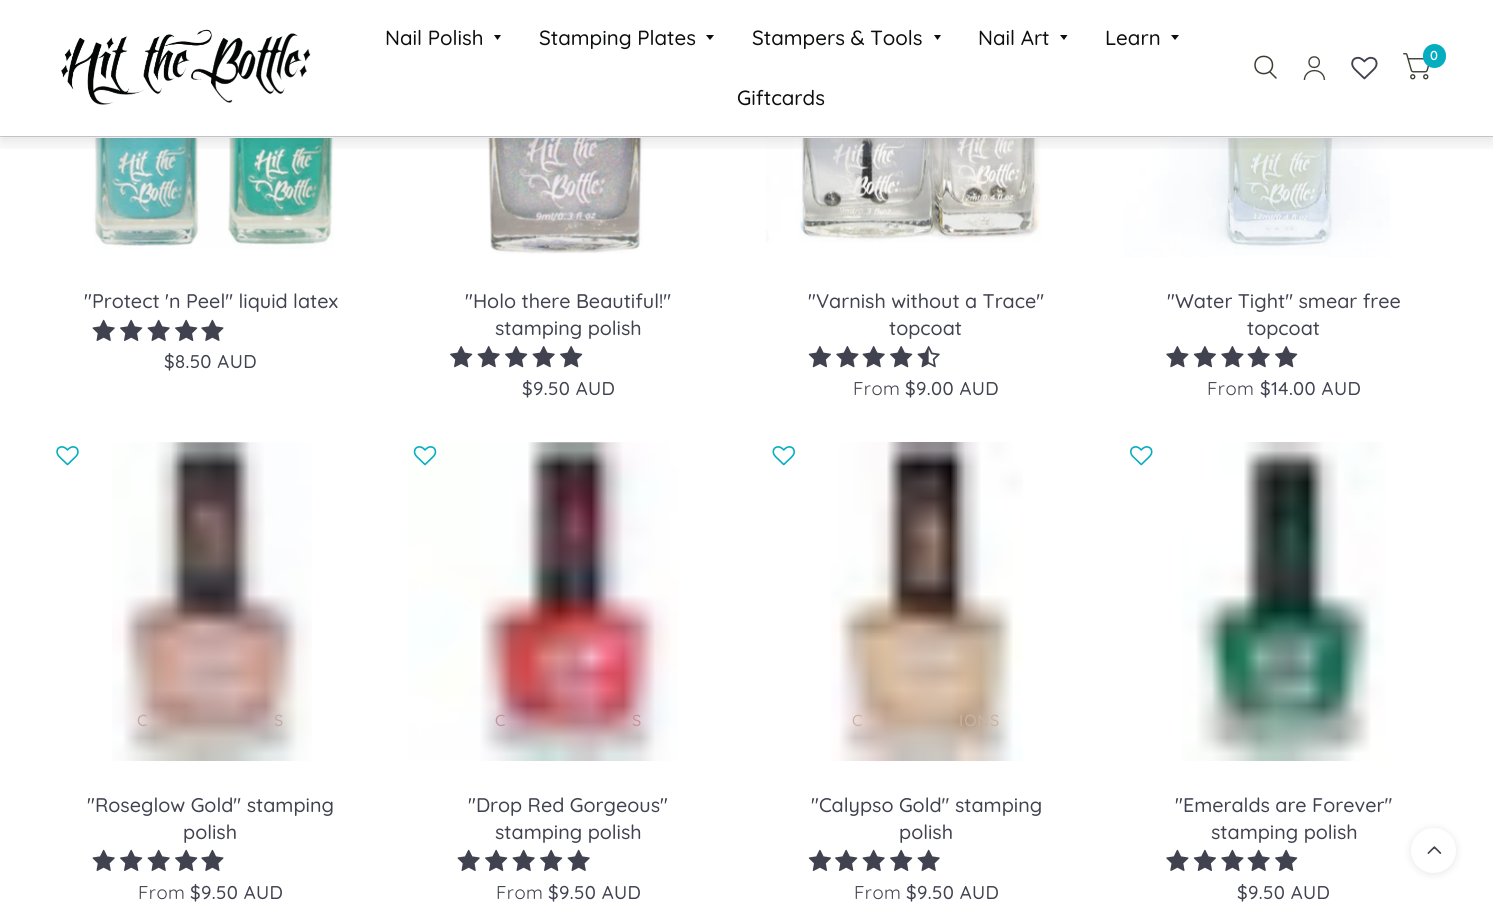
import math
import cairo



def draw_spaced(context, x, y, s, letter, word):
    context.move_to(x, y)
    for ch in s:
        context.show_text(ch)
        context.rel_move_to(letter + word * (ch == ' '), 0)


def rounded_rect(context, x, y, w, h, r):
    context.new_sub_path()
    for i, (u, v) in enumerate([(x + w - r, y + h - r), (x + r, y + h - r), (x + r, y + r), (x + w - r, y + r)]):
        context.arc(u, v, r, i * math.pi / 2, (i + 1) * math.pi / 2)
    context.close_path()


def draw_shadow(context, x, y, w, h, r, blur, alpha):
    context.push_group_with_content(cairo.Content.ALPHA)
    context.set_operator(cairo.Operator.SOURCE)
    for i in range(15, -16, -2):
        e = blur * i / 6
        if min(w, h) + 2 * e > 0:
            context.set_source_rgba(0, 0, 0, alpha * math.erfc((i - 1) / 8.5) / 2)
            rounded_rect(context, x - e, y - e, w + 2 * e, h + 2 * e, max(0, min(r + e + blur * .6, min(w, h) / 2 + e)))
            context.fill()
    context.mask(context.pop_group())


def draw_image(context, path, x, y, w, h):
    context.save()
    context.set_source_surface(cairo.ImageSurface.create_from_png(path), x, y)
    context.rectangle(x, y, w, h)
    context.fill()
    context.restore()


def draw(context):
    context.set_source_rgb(1, 1, 1)
    context.paint()
    context.set_source_rgb(210 / 255, 210 / 255, 217 / 255)
    context.rectangle(0, 136, 1493, 1)
    context.fill()
    draw_image(context, "images/5.png", 93, 138, 241, 111)
    draw_image(context, "images/9.png", 488, 138, 156, 116)
    draw_image(context, "images/12.png", 766, 138, 275, 105)
    draw_image(context, "images/16.png", 1124, 138, 266, 119)
    context.save()
    context.rectangle(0, 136, 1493, 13)
    context.clip()
    context.set_source_rgb(0, 0, 0)
    draw_shadow(context, 0, 5, 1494, 138, 0, 7.5, 0.1)
    context.restore()
    draw_image(context, "images/1.png", 61, 29, 250, 76)
    context.set_source_rgb(12 / 255, 13 / 255, 13 / 255)
    context.new_path()
    context.move_to(494, 35)
    context.line_to(501, 35)
    context.line_to(497.5, 40)
    context.close_path()
    context.fill()
    context.new_path()
    context.move_to(706, 35)
    context.line_to(714, 35)
    context.line_to(710, 40)
    context.close_path()
    context.fill()
    context.new_path()
    context.move_to(934, 35)
    context.line_to(941, 35)
    context.line_to(937.5, 40)
    context.close_path()
    context.fill()
    context.new_path()
    context.move_to(1060, 35)
    context.line_to(1067.5, 35)
    context.line_to(1064, 40)
    context.close_path()
    context.fill()
    context.new_path()
    context.move_to(1171, 35)
    context.line_to(1179, 35)
    context.line_to(1175, 40)
    context.close_path()
    context.fill()
    context.new_path()
    context.move_to(1270, 72)
    context.line_to(1276, 78)
    context.move_to(1272.5, 65)
    context.curve_to(1272.5, 76.5, 1255, 76.5, 1255, 65)
    context.curve_to(1255, 53.5, 1272.5, 53.5, 1272.5, 65)
    context.close_path()
    context.set_source_rgb(57 / 255, 62 / 255, 48 / 255)
    context.set_line_width(1.5)
    context.set_line_cap(cairo.LineCap.ROUND)
    context.set_line_join(cairo.LineJoin.ROUND)
    context.stroke()
    draw_image(context, "images/2.png", 1303, 56, 23, 24)
    draw_image(context, "images/3.png", 1351, 56, 27, 24)
    draw_image(context, "images/4.png", 1403, 53, 26, 27)
    context.set_source_rgb(4 / 255, 173 / 255, 191 / 255)
    rounded_rect(context, 1423, 44, 23, 24, 11.5)
    context.fill()
    draw_image(context, "images/6.png", 92, 319, 23, 22)
    draw_image(context, "images/7.png", 120, 319, 23, 22)
    draw_image(context, "images/6.png", 147, 319, 23, 22)
    draw_image(context, "images/7.png", 175, 319, 23, 22)
    draw_image(context, "images/8.png", 201, 319, 23, 22)
    draw_image(context, "images/10.png", 450, 346, 23, 22)
    draw_image(context, "images/11.png", 477, 346, 23, 22)
    draw_image(context, "images/10.png", 505, 346, 23, 22)
    draw_image(context, "images/11.png", 532, 346, 23, 22)
    draw_image(context, "images/10.png", 560, 346, 23, 22)
    draw_image(context, "images/13.png", 808, 346, 23, 22)
    draw_image(context, "images/14.png", 836, 346, 23, 22)
    draw_image(context, "images/11.png", 862, 346, 23, 22)
    draw_image(context, "images/10.png", 890, 346, 23, 22)
    draw_image(context, "images/15.png", 917, 346, 23, 22)
    draw_image(context, "images/14.png", 1166, 346, 23, 22)
    draw_image(context, "images/13.png", 1193, 346, 23, 22)
    draw_image(context, "images/14.png", 1221, 346, 23, 22)
    draw_image(context, "images/11.png", 1247, 346, 23, 22)
    draw_image(context, "images/10.png", 1275, 346, 23, 22)
    draw_image(context, "images/17.png", 56, 446, 23, 20)
    draw_image(context, "images/18.png", 112, 442, 200, 319)
    draw_image(context, "images/6.png", 92, 849, 23, 22)
    draw_image(context, "images/7.png", 120, 849, 23, 22)
    draw_image(context, "images/6.png", 147, 849, 23, 22)
    draw_image(context, "images/7.png", 175, 849, 23, 22)
    draw_image(context, "images/8.png", 201, 849, 23, 22)
    draw_image(context, "images/20.png", 408, 442, 270, 319)
    draw_image(context, "images/19.png", 413, 446, 24, 20)
    draw_image(context, "images/6.png", 457, 849, 23, 22)
    draw_image(context, "images/7.png", 485, 849, 23, 22)
    draw_image(context, "images/6.png", 512, 849, 23, 22)
    draw_image(context, "images/7.png", 540, 849, 23, 22)
    draw_image(context, "images/6.png", 567, 849, 23, 22)
    draw_image(context, "images/21.png", 772, 446, 23, 20)
    draw_image(context, "images/22.png", 831, 442, 192, 319)
    draw_image(context, "images/23.png", 808, 849, 23, 22)
    draw_image(context, "images/7.png", 835, 849, 23, 22)
    draw_image(context, "images/6.png", 862, 849, 23, 22)
    draw_image(context, "images/7.png", 890, 849, 23, 22)
    draw_image(context, "images/6.png", 917, 849, 23, 22)
    draw_image(context, "images/24.png", 1130, 446, 23, 20)
    draw_image(context, "images/25.png", 1181, 442, 204, 319)
    draw_image(context, "images/8.png", 1166, 849, 23, 22)
    draw_image(context, "images/23.png", 1193, 849, 23, 22)
    draw_image(context, "images/8.png", 1221, 849, 23, 22)
    draw_image(context, "images/6.png", 1247, 849, 23, 22)
    draw_image(context, "images/7.png", 1275, 849, 23, 22)
    context.set_source_rgb(0, 0, 0)
    draw_shadow(context, 1411, 829, 45, 45, 22.5, 4, 0.1)
    context.set_source_rgb(1, 1, 1)
    context.arc(1433.5, 850.5, 22.5, 0, 2 * math.pi)
    context.fill()
    draw_image(context, "images/26.png", 1427, 846, 15, 8)
    context.select_font_face("Quicksand Medium")
    context.set_font_size(20.5)
    context.set_source_rgb(12 / 255, 13 / 255, 13 / 255)
    context.move_to(385, 45)
    context.show_text("Nail Polish")
    context.move_to(539, 45)
    context.show_text("Stamping Plates")
    context.move_to(752, 45)
    context.show_text("Stampers & Tools")
    context.move_to(978, 45)
    context.show_text("Nail Art")
    context.move_to(1105, 45)
    context.show_text("Learn")
    context.move_to(737, 105)
    context.show_text("Giftcards")
    context.select_font_face("Quicksand SemiBold")
    context.set_font_size(13)
    context.set_source_rgb(1, 1, 1)
    context.move_to(1430, 60)
    context.show_text("0")
    context.select_font_face("Quicksand Medium")
    context.set_font_size(19.75)
    context.set_source_rgb(64 / 255, 66 / 255, 79 / 255)
    context.move_to(84, 308)
    context.show_text("\"Protect 'n Peel\" liquid latex")
    context.set_font_size(18.5)
    draw_spaced(context, 164, 368, "$8.50 AUD", 0.4, 0)
    context.set_font_size(19.75)
    context.move_to(465, 308)
    context.show_text("\"Holo there Beautiful!\"")
    context.move_to(495, 335)
    context.show_text("stamping polish")
    context.set_font_size(18.5)
    draw_spaced(context, 522, 395, "$9.50 AUD", 0.4, 0)
    context.set_font_size(19.75)
    context.move_to(808, 308)
    context.show_text("\"Varnish without a Trace\"")
    context.move_to(889, 335)
    context.show_text("topcoat")
    context.select_font_face("Quicksand Light")
    context.set_font_size(18.5)
    draw_spaced(context, 853, 395, "From", 0.4, 0)
    context.select_font_face("Quicksand Medium")
    draw_spaced(context, 905, 395, "$9.00 AUD", 0.4, 0)
    context.set_font_size(19.75)
    context.move_to(1167, 308)
    context.show_text("\"Water Tight\" smear free")
    context.move_to(1247, 335)
    context.show_text("topcoat")
    context.select_font_face("Quicksand Light")
    context.set_font_size(18.5)
    draw_spaced(context, 1207, 395, "From", 0.4, 0)
    context.select_font_face("Quicksand Medium")
    draw_spaced(context, 1260, 395, "$14.00 AUD", 0.4, 0)
    context.set_font_size(16)
    context.set_source_rgb(192 / 255, 169 / 255, 164 / 255)
    draw_spaced(context, 137, 726, "C", 1, 0)
    draw_spaced(context, 274, 726, "S", 1, 0)
    context.set_font_size(19.75)
    context.set_source_rgb(64 / 255, 66 / 255, 79 / 255)
    context.move_to(87, 812)
    context.show_text("\"Roseglow Gold\" stamping")
    context.move_to(183, 839)
    context.show_text("polish")
    context.select_font_face("Quicksand Light")
    context.set_font_size(18.5)
    draw_spaced(context, 138, 899, "From", 0.4, 0)
    context.select_font_face("Quicksand Medium")
    draw_spaced(context, 190, 899, "$9.50 AUD", 0.4, 0)
    context.set_font_size(16)
    context.set_source_rgb(199 / 255, 145 / 255, 154 / 255)
    draw_spaced(context, 495, 726, "C", 1, 0)
    draw_spaced(context, 632, 726, "S", 1, 0)
    context.set_font_size(19.75)
    context.set_source_rgb(64 / 255, 66 / 255, 79 / 255)
    context.move_to(468, 812)
    context.show_text("\"Drop Red Gorgeous\"")
    context.move_to(495, 839)
    context.show_text("stamping polish")
    context.select_font_face("Quicksand Light")
    context.set_font_size(18.5)
    draw_spaced(context, 496, 899, "From", 0.4, 0)
    context.select_font_face("Quicksand Medium")
    draw_spaced(context, 548, 899, "$9.50 AUD", 0.4, 0)
    context.set_font_size(16)
    context.set_source_rgb(201 / 255, 180 / 255, 163 / 255)
    draw_spaced(context, 852, 726, "C", 1, 0)
    draw_spaced(context, 959, 726, "IONS", 1, 0)
    context.set_font_size(19.75)
    context.set_source_rgb(64 / 255, 66 / 255, 79 / 255)
    context.move_to(811, 812)
    context.show_text("\"Calypso Gold\" stamping")
    context.move_to(899, 839)
    context.show_text("polish")
    context.select_font_face("Quicksand Light")
    context.set_font_size(18.5)
    draw_spaced(context, 854, 899, "From", 0.4, 0)
    context.select_font_face("Quicksand Medium")
    draw_spaced(context, 906, 899, "$9.50 AUD", 0.4, 0)
    context.set_font_size(19.75)
    context.move_to(1175, 812)
    context.show_text("\"Emeralds are Forever\"")
    context.move_to(1211, 839)
    context.show_text("stamping polish")
    context.set_font_size(18.5)
    draw_spaced(context, 1237, 899, "$9.50 AUD", 0.4, 0)


surface = cairo.ImageSurface(cairo.Format.RGB24, 1493, 909)
context = cairo.Context(surface)
options = cairo.FontOptions()
options.set_hint_metrics(cairo.HintMetrics.OFF)
options.set_hint_style(cairo.HintStyle.NONE)
context.set_font_options(options)
context.set_miter_limit(4)
draw(context)
surface.write_to_png("out.png")
